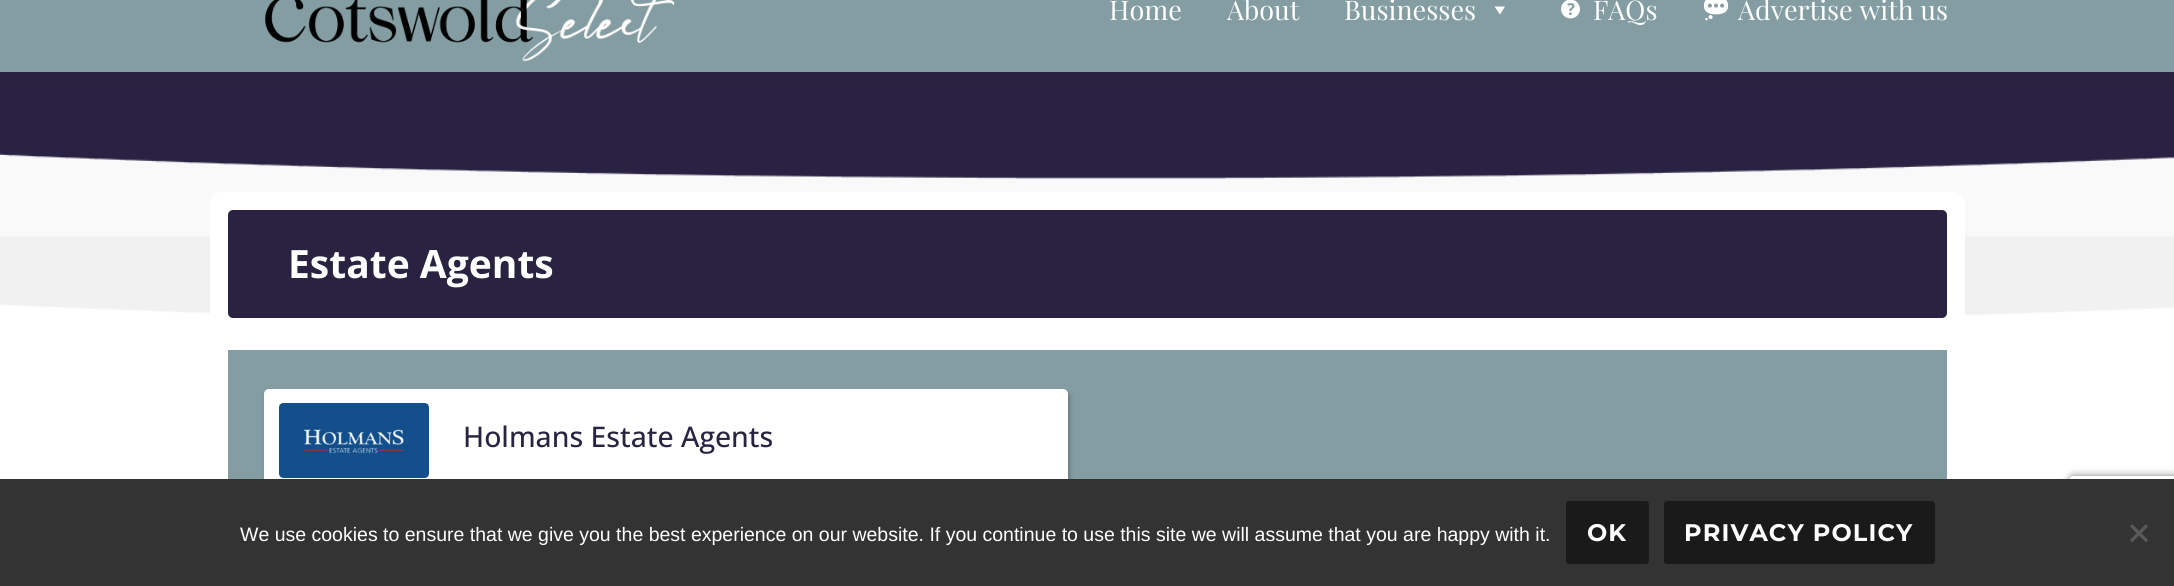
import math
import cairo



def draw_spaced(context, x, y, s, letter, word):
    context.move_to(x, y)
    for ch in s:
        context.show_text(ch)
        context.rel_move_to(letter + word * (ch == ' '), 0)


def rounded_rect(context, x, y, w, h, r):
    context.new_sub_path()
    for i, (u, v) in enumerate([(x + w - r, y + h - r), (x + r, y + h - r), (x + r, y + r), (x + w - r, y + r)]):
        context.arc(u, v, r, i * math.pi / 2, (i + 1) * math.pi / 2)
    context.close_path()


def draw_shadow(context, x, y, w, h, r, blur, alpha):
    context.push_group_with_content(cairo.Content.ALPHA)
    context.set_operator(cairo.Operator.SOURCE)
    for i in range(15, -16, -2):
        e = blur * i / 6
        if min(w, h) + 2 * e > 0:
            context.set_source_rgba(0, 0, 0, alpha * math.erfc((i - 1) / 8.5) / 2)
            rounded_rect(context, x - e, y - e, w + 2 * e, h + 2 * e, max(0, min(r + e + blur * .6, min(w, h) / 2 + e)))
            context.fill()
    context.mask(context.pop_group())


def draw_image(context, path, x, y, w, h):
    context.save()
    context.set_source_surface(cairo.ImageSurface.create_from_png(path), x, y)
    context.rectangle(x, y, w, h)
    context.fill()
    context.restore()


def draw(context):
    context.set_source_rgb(1, 1, 1)
    context.paint()
    context.set_source_rgb(132 / 255, 157 / 255, 162 / 255)
    context.rectangle(0, 0, 2174, 72)
    context.fill()
    draw_image(context, "images/1.png", 265, 0, 410, 62)
    context.set_source_rgb(1, 1, 1)
    context.new_path()
    context.move_to(1505, 6.5)
    context.line_to(1500, 14.5)
    context.line_to(1494.5, 6.5)
    context.close_path()
    context.fill()
    draw_image(context, "images/2.png", 1561, 0, 19, 19)
    draw_image(context, "images/3.png", 1703, 0, 26, 21)
    context.set_source_rgb(249 / 255, 249 / 255, 249 / 255)
    context.rectangle(0, 153, 2174, 84)
    context.fill()
    context.set_source_rgb(41 / 255, 34 / 255, 65 / 255)
    context.rectangle(0, 72, 2174, 15)
    context.fill()
    draw_image(context, "images/4.png", 0, 87, 2174, 92)
    draw_image(context, "images/5.png", 0, 236, 2174, 80)
    context.set_source_rgb(1, 1, 1)
    rounded_rect(context, 210, 192, 1755, 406, 12)
    context.fill()
    context.set_source_rgb(41 / 255, 34 / 255, 65 / 255)
    rounded_rect(context, 228, 210, 1719, 108, 5)
    context.fill()
    context.set_source_rgb(132 / 255, 157 / 255, 162 / 255)
    context.rectangle(228, 350, 1719, 129)
    context.fill()
    context.set_source_rgb(0, 0, 0)
    draw_shadow(context, 266, 392, 804, 105, 5, 2, 0.24)
    context.set_source_rgb(1, 1, 1)
    rounded_rect(context, 264, 389, 804, 105, 5)
    context.fill()
    draw_image(context, "images/6.png", 279, 403, 150, 75)
    context.save()
    context.set_fill_rule(cairo.FillRule.EVEN_ODD)
    context.new_path()
    context.move_to(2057, 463)
    context.line_to(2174, 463)
    context.line_to(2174, 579)
    context.line_to(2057, 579)
    context.close_path()
    context.move_to(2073, 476)
    context.line_to(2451, 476)
    context.curve_to(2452.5, 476, 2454, 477.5, 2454, 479)
    context.line_to(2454, 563)
    context.curve_to(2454, 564.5, 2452.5, 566, 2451, 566)
    context.line_to(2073, 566)
    context.curve_to(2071.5, 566, 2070, 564.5, 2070, 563)
    context.line_to(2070, 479)
    context.curve_to(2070, 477.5, 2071.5, 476, 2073, 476)
    context.close_path()
    context.clip()
    context.set_source_rgb(128 / 255, 128 / 255, 128 / 255)
    draw_shadow(context, 2070, 476, 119, 90, 3, 4, 1)
    context.restore()
    context.set_source_rgb(51 / 255, 51 / 255, 51 / 255)
    context.rectangle(0, 479, 2174, 107)
    context.fill()
    context.set_source_rgb(26 / 255, 26 / 255, 26 / 255)
    rounded_rect(context, 1566, 501, 83, 63, 3)
    context.fill()
    rounded_rect(context, 1664, 501, 271, 63, 3)
    context.fill()
    context.set_source_rgb(90 / 255, 90 / 255, 90 / 255)
    context.new_path()
    context.move_to(2146, 524)
    context.line_to(2148, 526.5)
    context.line_to(2132, 542.5)
    context.line_to(2130, 540)
    context.close_path()
    context.fill()
    context.new_path()
    context.move_to(2130, 526.5)
    context.line_to(2132, 524)
    context.line_to(2148, 540)
    context.line_to(2146, 542.5)
    context.close_path()
    context.fill()
    context.select_font_face("Playfair Display")
    context.set_font_size(27)
    context.set_source_rgb(1, 1, 1)
    context.move_to(1109, 20)
    context.show_text("Home")
    context.move_to(1227, 20)
    context.show_text("About")
    context.move_to(1344, 20)
    context.show_text("Businesses")
    context.move_to(1593, 20)
    context.show_text("FAQs")
    context.move_to(1738, 20)
    context.show_text("Advertise with us")
    context.select_font_face("Open Sans", cairo.FontSlant.NORMAL, cairo.FontWeight.BOLD)
    context.set_font_size(39)
    context.move_to(288, 278)
    context.show_text("Estate Agents")
    context.select_font_face("Open Sans Medium")
    context.set_font_size(28.4)
    context.set_source_rgb(41 / 255, 34 / 255, 65 / 255)
    context.move_to(463, 447)
    context.show_text("Holmans Estate Agents")
    context.select_font_face("Liberation Sans")
    context.set_font_size(19.5)
    context.set_source_rgb(1, 1, 1)
    context.move_to(240, 541)
    context.show_text("We use cookies to ensure that we give you the best experience on our website. If you continue to use this site we will assume that you are happy with it.")
    context.select_font_face("Montserrat Thin")
    context.set_font_size(24)
    draw_spaced(context, 1587, 541, "OK", 1.1, 0)
    draw_spaced(context, 1684, 541, "PRIVACY POLICY", 1.1, 0)


surface = cairo.ImageSurface(cairo.Format.RGB24, 2174, 586)
context = cairo.Context(surface)
options = cairo.FontOptions()
options.set_hint_metrics(cairo.HintMetrics.OFF)
options.set_hint_style(cairo.HintStyle.NONE)
context.set_font_options(options)
context.set_miter_limit(4)
draw(context)
surface.write_to_png("out.png")
